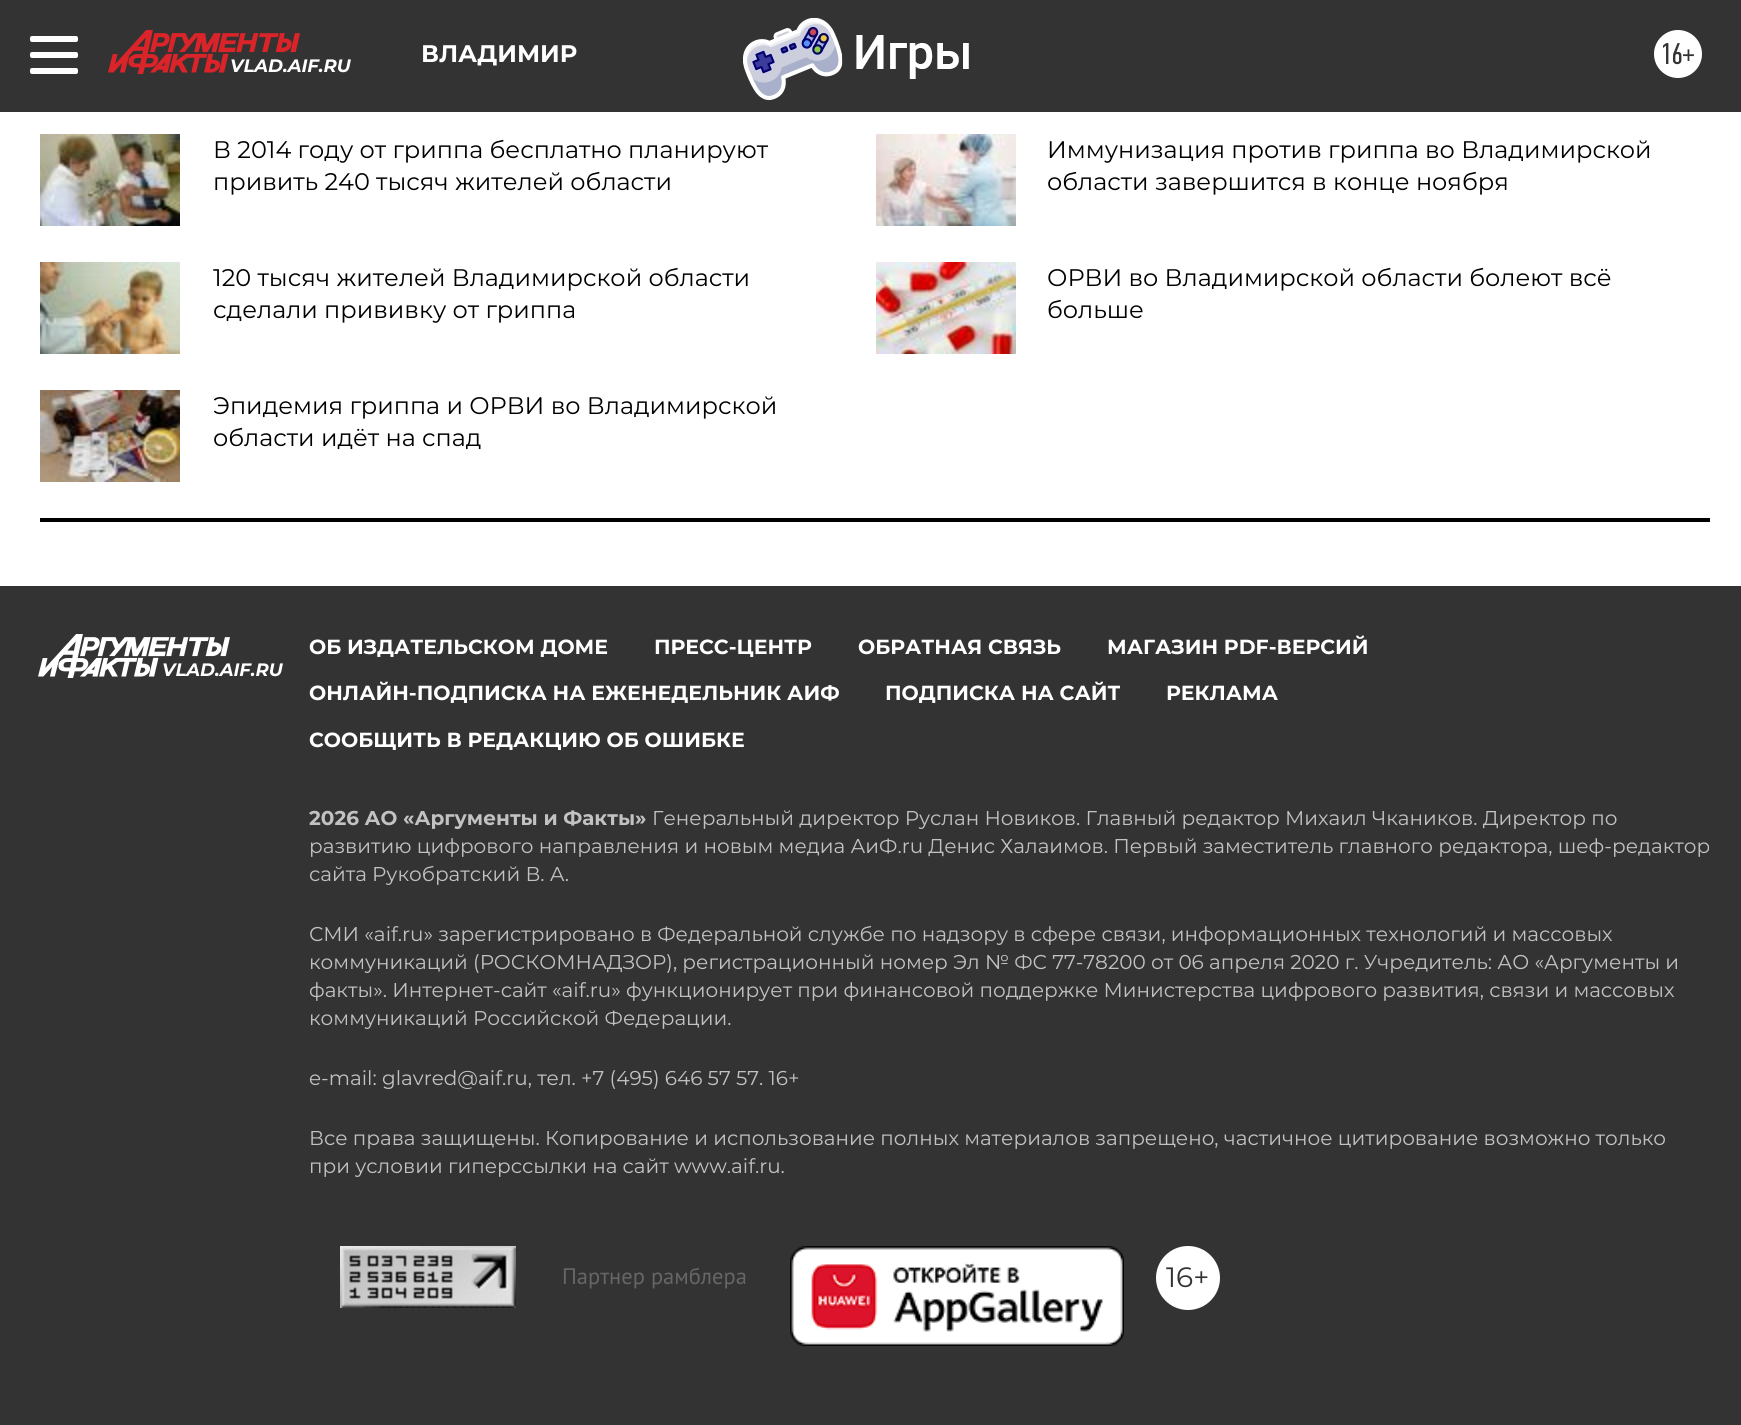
import math
import cairo



def rounded_rect(context, x, y, w, h, r):
    context.new_sub_path()
    for i, (u, v) in enumerate([(x + w - r, y + h - r), (x + r, y + h - r), (x + r, y + r), (x + w - r, y + r)]):
        context.arc(u, v, r, i * math.pi / 2, (i + 1) * math.pi / 2)
    context.close_path()


def draw_image(context, path, x, y, w, h):
    context.save()
    context.set_source_surface(cairo.ImageSurface.create_from_png(path), x, y)
    context.rectangle(x, y, w, h)
    context.fill()
    context.restore()


def draw(context):
    context.set_source_rgb(1, 1, 1)
    context.paint()
    context.set_source_rgb(51 / 255, 51 / 255, 51 / 255)
    context.rectangle(0, 0, 1741, 112)
    context.fill()
    context.set_source_rgb(1, 1, 1)
    rounded_rect(context, 30, 36, 48, 6, 2)
    context.fill()
    rounded_rect(context, 30, 52, 48, 6, 2)
    context.fill()
    rounded_rect(context, 30, 68, 48, 6, 2)
    context.fill()
    draw_image(context, "images/1.png", 108, 30, 192, 44)
    draw_image(context, "images/2.png", 743, 18, 226, 82)
    context.arc(1678, 54, 24, 0, 2 * math.pi)
    context.fill()
    context.set_source_rgb(0, 0, 0)
    context.rectangle(40, 518, 1670, 4)
    context.fill()
    draw_image(context, "images/3.png", 40, 134, 140, 92)
    draw_image(context, "images/4.png", 876, 134, 140, 92)
    draw_image(context, "images/5.png", 40, 262, 140, 92)
    draw_image(context, "images/6.png", 876, 262, 140, 92)
    draw_image(context, "images/7.png", 40, 390, 140, 92)
    context.set_source_rgb(51 / 255, 51 / 255, 51 / 255)
    context.rectangle(0, 586, 1741, 839)
    context.fill()
    draw_image(context, "images/8.png", 38, 634, 192, 44)
    draw_image(context, "images/9.png", 340, 1246, 176, 62)
    draw_image(context, "images/10.png", 790, 1246, 334, 100)
    context.set_source_rgb(1, 1, 1)
    context.arc(1188, 1278, 32, 0, 2 * math.pi)
    context.fill()
    context.select_font_face("Montserrat", cairo.FontSlant.ITALIC, cairo.FontWeight.BOLD)
    context.set_font_size(18)
    context.move_to(230, 72)
    context.show_text("VLAD.AIF.RU")
    context.select_font_face("Montserrat", cairo.FontSlant.NORMAL, cairo.FontWeight.BOLD)
    context.set_font_size(24)
    context.move_to(421, 62)
    context.show_text("ВЛАДИМИР")
    context.select_font_face("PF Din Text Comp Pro")
    context.set_font_size(30)
    context.set_source_rgb(51 / 255, 51 / 255, 51 / 255)
    context.move_to(1660, 64)
    context.show_text("16+")
    context.select_font_face("Montserrat")
    context.set_font_size(24)
    context.set_source_rgb(0, 0, 0)
    context.move_to(213, 158)
    context.show_text("В 2014 году от гриппа бесплатно планируют")
    context.move_to(213, 190)
    context.show_text("привить 240 тысяч жителей области")
    context.move_to(1047, 158)
    context.show_text("Иммунизация против гриппа во Владимирской")
    context.move_to(1047, 190)
    context.show_text("области завершится в конце ноября")
    context.move_to(213, 286)
    context.show_text("120 тысяч жителей Владимирской области")
    context.move_to(213, 318)
    context.show_text("сделали прививку от гриппа")
    context.move_to(1047, 286)
    context.show_text("ОРВИ во Владимирской области болеют всё")
    context.move_to(1047, 318)
    context.show_text("больше")
    context.move_to(213, 414)
    context.show_text("Эпидемия гриппа и ОРВИ во Владимирской")
    context.move_to(213, 446)
    context.show_text("области идёт на спад")
    context.select_font_face("Montserrat", cairo.FontSlant.ITALIC, cairo.FontWeight.BOLD)
    context.set_font_size(18)
    context.set_source_rgb(1, 1, 1)
    context.move_to(162, 676)
    context.show_text("VLAD.AIF.RU")
    context.select_font_face("Montserrat", cairo.FontSlant.NORMAL, cairo.FontWeight.BOLD)
    context.set_font_size(20.4)
    context.move_to(309, 654)
    context.show_text("ОБ ИЗДАТЕЛЬСКОМ ДОМЕ")
    context.move_to(654, 654)
    context.show_text("ПРЕСС-ЦЕНТР")
    context.move_to(858, 654)
    context.show_text("ОБРАТНАЯ СВЯЗЬ")
    context.move_to(1107, 654)
    context.show_text("МАГАЗИН PDF-ВЕРСИЙ")
    context.move_to(309, 700)
    context.show_text("ОНЛАЙН-ПОДПИСКА НА ЕЖЕНЕДЕЛЬНИК АИФ")
    context.move_to(885, 700)
    context.show_text("ПОДПИСКА НА САЙТ")
    context.move_to(1166, 700)
    context.show_text("РЕКЛАМА")
    context.move_to(309, 747)
    context.show_text("СООБЩИТЬ В РЕДАКЦИЮ ОБ ОШИБКЕ")
    context.set_font_size(20)
    context.set_source_rgb(194 / 255, 194 / 255, 194 / 255)
    context.move_to(309, 825)
    context.show_text("2026 АО «Аргументы и Факты»")
    context.select_font_face("Montserrat")
    context.move_to(652, 825)
    context.show_text("Генеральный директор Руслан Новиков. Главный редактор Михаил Чкаников. Директор по")
    context.move_to(309, 853)
    context.show_text("развитию цифрового направления и новым медиа АиФ.ru Денис Халаимов. Первый заместитель главного редактора, шеф-редактор")
    context.move_to(309, 881)
    context.show_text("сайта Рукобратский В. А.")
    context.move_to(309, 941)
    context.show_text("СМИ «aif.ru» зарегистрировано в Федеральной службе по надзору в сфере связи, информационных технологий и массовых")
    context.move_to(309, 969)
    context.show_text("коммуникаций (РОСКОМНАДЗОР), регистрационный номер Эл № ФС 77-78200 от 06 апреля 2020 г. Учредитель: АО «Аргументы и")
    context.move_to(309, 997)
    context.show_text("факты». Интернет-сайт «aif.ru» функционирует при финансовой поддержке Министерства цифрового развития, связи и массовых")
    context.move_to(309, 1025)
    context.show_text("коммуникаций Российской Федерации.")
    context.move_to(309, 1085)
    context.show_text("e-mail: glavred@aif.ru, тел. +7 (495) 646 57 57. 16+")
    context.move_to(309, 1145)
    context.show_text("Все права защищены. Копирование и использование полных материалов запрещено, частичное цитирование возможно только")
    context.move_to(309, 1173)
    context.show_text("при условии гиперссылки на сайт www.aif.ru.")
    context.select_font_face("PT Sans")
    context.set_font_size(22.5)
    context.set_source_rgb(102 / 255, 102 / 255, 102 / 255)
    context.move_to(562, 1284)
    context.show_text("Партнер рамблера")
    context.select_font_face("Montserrat")
    context.set_font_size(28)
    context.set_source_rgb(51 / 255, 51 / 255, 51 / 255)
    context.move_to(1166, 1287)
    context.show_text("16+")


surface = cairo.ImageSurface(cairo.Format.RGB24, 1741, 1425)
context = cairo.Context(surface)
options = cairo.FontOptions()
options.set_hint_metrics(cairo.HintMetrics.OFF)
options.set_hint_style(cairo.HintStyle.NONE)
context.set_font_options(options)
context.set_miter_limit(4)
draw(context)
surface.write_to_png("out.png")
